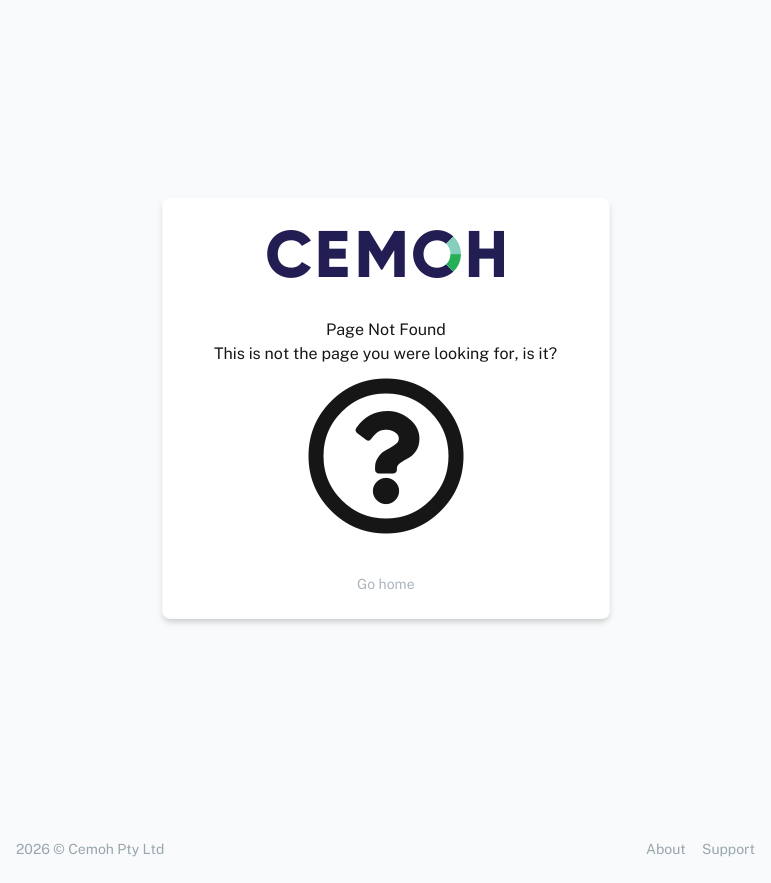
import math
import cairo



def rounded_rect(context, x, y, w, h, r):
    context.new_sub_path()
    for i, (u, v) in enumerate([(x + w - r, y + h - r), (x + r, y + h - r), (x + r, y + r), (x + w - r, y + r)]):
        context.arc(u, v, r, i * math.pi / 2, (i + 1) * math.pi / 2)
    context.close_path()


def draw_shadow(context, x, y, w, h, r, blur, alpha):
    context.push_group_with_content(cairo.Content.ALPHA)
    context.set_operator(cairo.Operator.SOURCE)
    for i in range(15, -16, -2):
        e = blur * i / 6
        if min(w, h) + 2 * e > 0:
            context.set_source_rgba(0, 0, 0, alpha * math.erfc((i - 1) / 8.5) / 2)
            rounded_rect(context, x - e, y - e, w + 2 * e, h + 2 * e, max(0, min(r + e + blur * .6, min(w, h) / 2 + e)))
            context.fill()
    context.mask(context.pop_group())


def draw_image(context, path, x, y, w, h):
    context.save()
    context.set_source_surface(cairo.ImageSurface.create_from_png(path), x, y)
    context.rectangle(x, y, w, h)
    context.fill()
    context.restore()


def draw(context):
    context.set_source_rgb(249 / 255, 250 / 255, 251 / 255)
    context.paint()
    context.set_source_rgb(22 / 255, 22 / 255, 22 / 255)
    draw_shadow(context, 163, 202, 446, 420, 7, 3, 0.2)
    context.set_source_rgb(1, 1, 1)
    rounded_rect(context, 162.5, 197.5, 447, 421, 7.5)
    context.fill_preserve()
    context.set_source_rgb(248 / 255, 249 / 255, 250 / 255)
    context.set_line_width(1)
    context.stroke()
    draw_image(context, "images/1.png", 267, 230, 237, 48)
    draw_image(context, "images/2.png", 308, 378, 156, 156)
    context.select_font_face("Public Sans")
    context.set_font_size(16)
    context.set_source_rgb(22 / 255, 22 / 255, 22 / 255)
    context.move_to(326, 335)
    context.show_text("Page Not Found")
    context.move_to(214, 359)
    context.show_text("This is not the page you were looking for, is it?")
    context.set_font_size(14)
    context.set_source_rgb(173 / 255, 181 / 255, 189 / 255)
    context.move_to(357, 589)
    context.show_text("Go home")
    context.set_source_rgb(152 / 255, 166 / 255, 173 / 255)
    context.move_to(16, 854)
    context.show_text("2026 © Cemoh Pty Ltd")
    context.move_to(646, 854)
    context.show_text("About")
    context.move_to(702, 854)
    context.show_text("Support")


surface = cairo.ImageSurface(cairo.Format.RGB24, 771, 883)
context = cairo.Context(surface)
options = cairo.FontOptions()
options.set_hint_metrics(cairo.HintMetrics.OFF)
options.set_hint_style(cairo.HintStyle.NONE)
context.set_font_options(options)
context.set_miter_limit(4)
draw(context)
surface.write_to_png("out.png")
